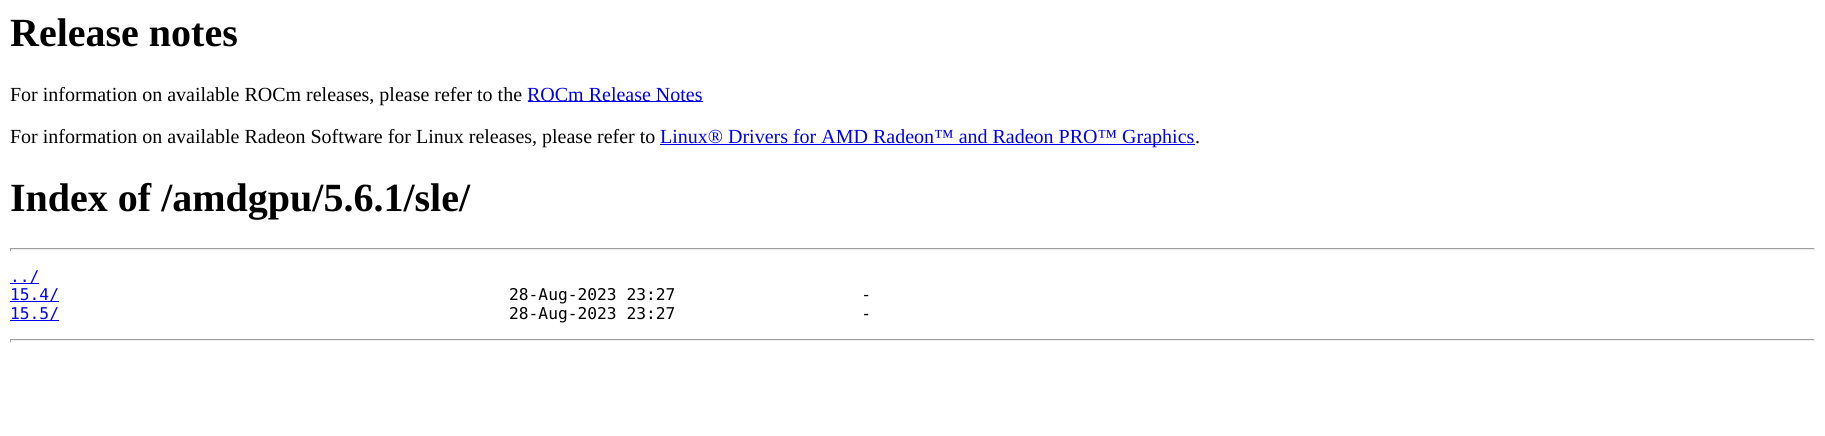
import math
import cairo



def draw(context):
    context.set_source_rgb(1, 1, 1)
    context.paint()
    context.set_source_rgb(0, 0, 238 / 255)
    context.rectangle(528, 101, 175, 1)
    context.fill()
    context.rectangle(660, 144, 535, 1)
    context.fill()
    context.set_source_rgb(159 / 255, 159 / 255, 159 / 255)
    context.rectangle(10, 248, 1805, 1)
    context.fill()
    context.set_source_rgb(238 / 255, 238 / 255, 238 / 255)
    context.rectangle(1814, 248, 1, 3)
    context.fill()
    context.rectangle(10, 249, 1805, 1)
    context.fill()
    context.set_source_rgb(159 / 255, 159 / 255, 159 / 255)
    context.rectangle(10, 248, 1, 3)
    context.fill()
    context.set_source_rgb(0, 0, 238 / 255)
    context.rectangle(10, 283, 29, 1)
    context.fill()
    context.rectangle(10, 301, 49, 1)
    context.fill()
    context.rectangle(10, 320, 49, 1)
    context.fill()
    context.set_source_rgb(159 / 255, 159 / 255, 159 / 255)
    context.rectangle(10, 339, 1805, 1)
    context.fill()
    context.set_source_rgb(238 / 255, 238 / 255, 238 / 255)
    context.rectangle(1814, 339, 1, 3)
    context.fill()
    context.rectangle(10, 340, 1805, 1)
    context.fill()
    context.set_source_rgb(159 / 255, 159 / 255, 159 / 255)
    context.rectangle(10, 339, 1, 3)
    context.fill()
    context.select_font_face("Liberation Serif", cairo.FontSlant.NORMAL, cairo.FontWeight.BOLD)
    context.set_font_size(40)
    context.set_source_rgb(0, 0, 0)
    context.move_to(10, 46)
    context.show_text("Release notes")
    context.select_font_face("Liberation Serif")
    context.set_font_size(20)
    context.move_to(10, 101)
    context.show_text("For information on available ROCm releases, please refer to the")
    context.set_source_rgb(0, 0, 238 / 255)
    context.move_to(527, 101)
    context.show_text("ROCm Release Notes")
    context.set_source_rgb(0, 0, 0)
    context.move_to(10, 143)
    context.show_text("For information on available Radeon Software for Linux releases, please refer to")
    context.set_source_rgb(0, 0, 238 / 255)
    context.move_to(660, 143)
    context.show_text("Linux® Drivers for AMD Radeon™ and Radeon PRO™ Graphics")
    context.set_source_rgb(0, 0, 0)
    context.move_to(1195, 143)
    context.show_text(".")
    context.select_font_face("Liberation Serif", cairo.FontSlant.NORMAL, cairo.FontWeight.BOLD)
    context.set_font_size(40)
    context.move_to(10, 211)
    context.show_text("Index of /amdgpu/5.6.1/sle/")
    context.select_font_face("DejaVu Sans Mono")
    context.set_font_size(16.25)
    context.set_source_rgb(0, 0, 238 / 255)
    context.move_to(10, 282)
    context.show_text("../")
    context.move_to(10, 300)
    context.show_text("15.4/")
    context.set_source_rgb(0, 0, 0)
    context.move_to(509, 300)
    context.show_text("28-Aug-2023 23:27                   -")
    context.set_source_rgb(0, 0, 238 / 255)
    context.move_to(10, 319)
    context.show_text("15.5/")
    context.set_source_rgb(0, 0, 0)
    context.move_to(509, 319)
    context.show_text("28-Aug-2023 23:27                   -")


surface = cairo.ImageSurface(cairo.Format.RGB24, 1825, 436)
context = cairo.Context(surface)
options = cairo.FontOptions()
options.set_hint_metrics(cairo.HintMetrics.OFF)
options.set_hint_style(cairo.HintStyle.NONE)
context.set_font_options(options)
context.set_miter_limit(4)
draw(context)
surface.write_to_png("out.png")
